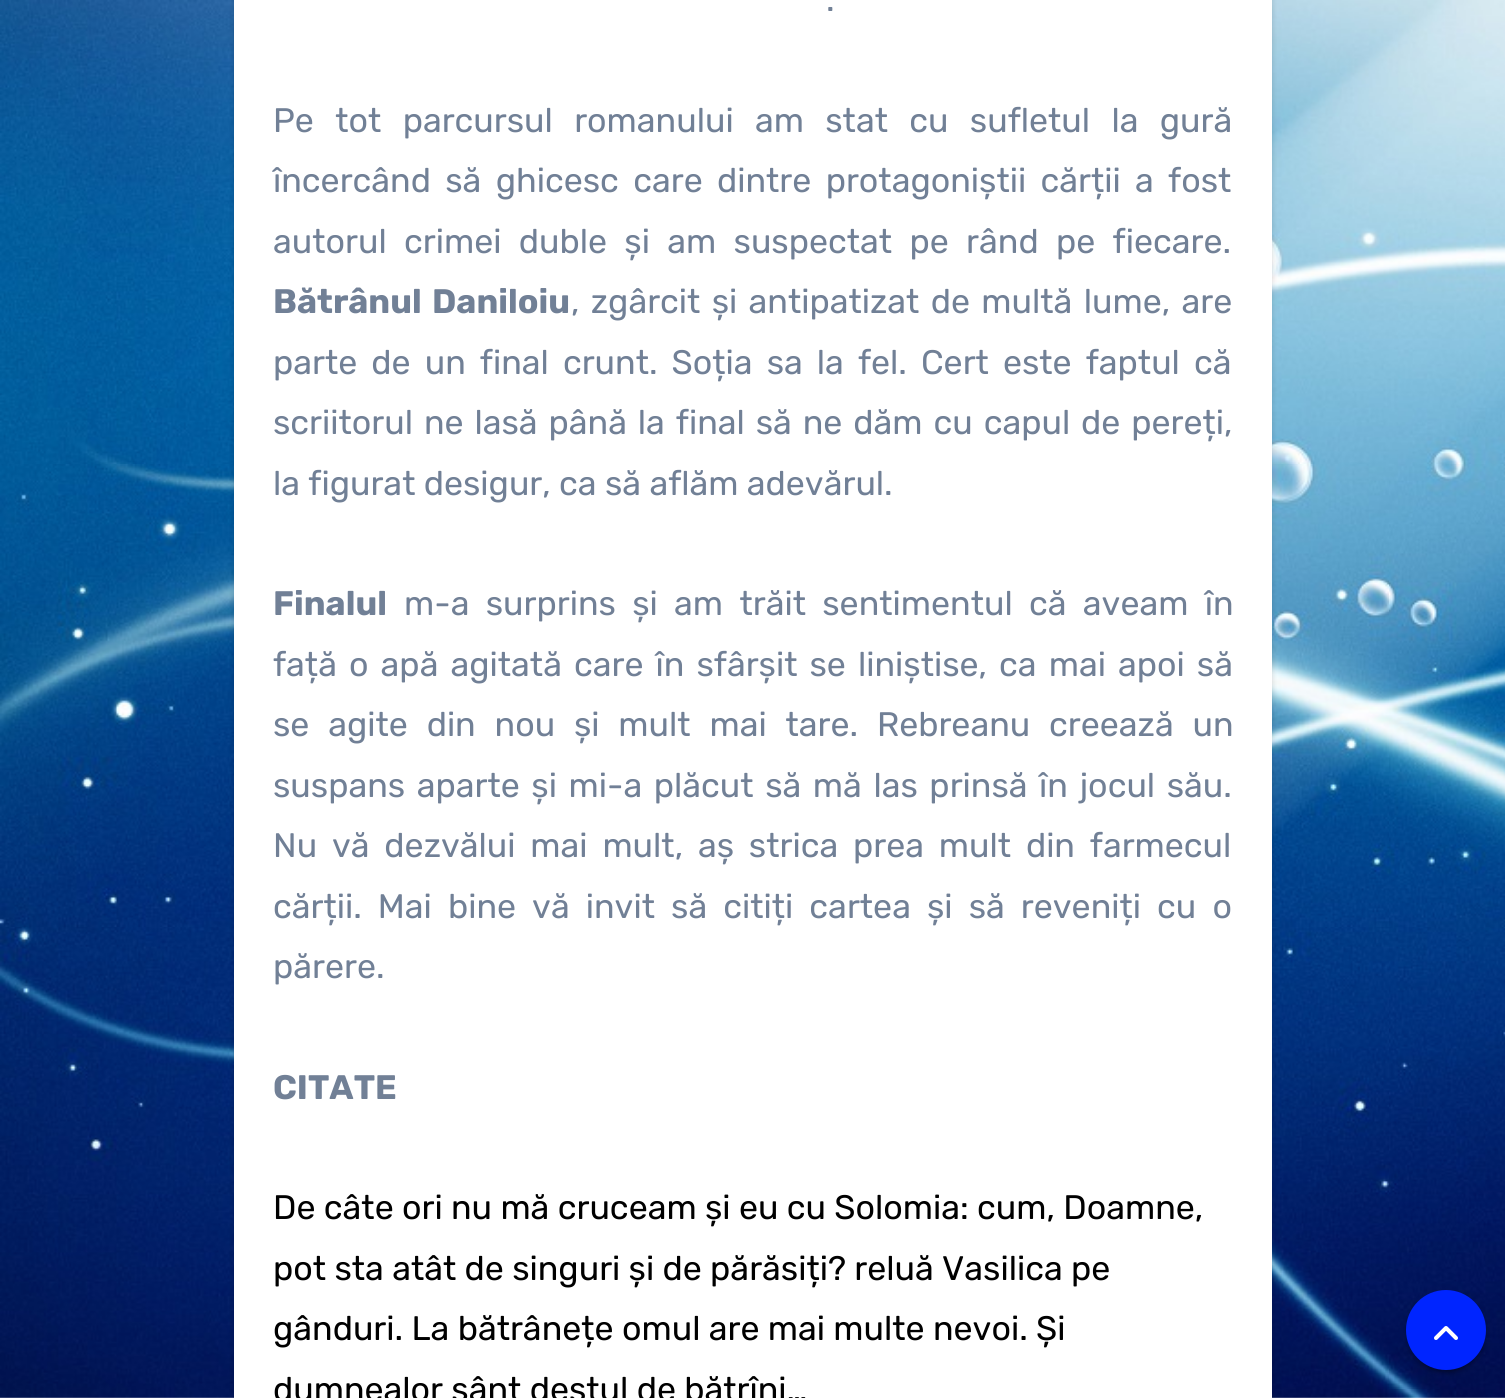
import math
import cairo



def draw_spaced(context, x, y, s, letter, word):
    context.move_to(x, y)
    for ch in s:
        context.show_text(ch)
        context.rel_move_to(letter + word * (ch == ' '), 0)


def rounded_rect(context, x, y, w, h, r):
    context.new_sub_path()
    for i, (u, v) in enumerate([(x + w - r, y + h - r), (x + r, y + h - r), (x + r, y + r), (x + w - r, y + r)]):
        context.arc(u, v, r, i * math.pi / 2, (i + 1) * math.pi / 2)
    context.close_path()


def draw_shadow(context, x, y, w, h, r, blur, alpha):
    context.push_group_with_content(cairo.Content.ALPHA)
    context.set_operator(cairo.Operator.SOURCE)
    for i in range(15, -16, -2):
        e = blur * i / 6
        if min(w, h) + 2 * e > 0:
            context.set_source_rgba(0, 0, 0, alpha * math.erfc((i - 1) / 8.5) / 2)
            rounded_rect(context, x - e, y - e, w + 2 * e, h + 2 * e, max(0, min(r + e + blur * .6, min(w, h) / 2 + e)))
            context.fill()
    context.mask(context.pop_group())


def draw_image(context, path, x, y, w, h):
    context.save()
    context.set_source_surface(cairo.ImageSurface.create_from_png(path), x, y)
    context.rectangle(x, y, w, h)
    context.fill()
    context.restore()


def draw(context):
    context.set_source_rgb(1, 1, 1)
    context.paint()
    draw_image(context, "images/1.png", 0, 0, 1505, 1398)
    context.set_source_rgb(0, 0, 0)
    draw_shadow(context, 234, -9, 1038, 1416, 0, 3, 0.15)
    context.set_source_rgb(1, 1, 1)
    context.rectangle(234, 0, 1038, 1398)
    context.fill()
    context.set_source_rgb(0, 0, 0)
    draw_shadow(context, 1406, 1292, 80, 80, 40, 5, 0.12)
    draw_shadow(context, 1410, 1300, 72, 72, 36, 1, 0.2)
    draw_shadow(context, 1406, 1294, 80, 80, 40, 2, 0.14)
    context.set_source_rgb(0, 37 / 255, 1)
    context.arc(1446, 1330, 38, 0, 2 * math.pi)
    context.fill_preserve()
    context.set_line_width(4)
    context.stroke()
    draw_image(context, "images/2.png", 1434, 1326, 24, 14)
    context.select_font_face("Rubik Light")
    context.set_font_size(34)
    context.set_source_rgb(113 / 255, 128 / 255, 150 / 255)
    context.move_to(826, 11)
    context.show_text(".")
    draw_spaced(context, 273, 132, "Pe tot parcursul romanului am stat cu sufletul la gură", 0, 13)
    draw_spaced(context, 273, 192, "încercând să ghicesc care dintre protagoniștii cărții a fost", 0, 6)
    draw_spaced(context, 273, 253, "autorul crimei duble și am suspectat pe rând pe fiecare.", 0, 9)
    context.select_font_face("Rubik", cairo.FontSlant.NORMAL, cairo.FontWeight.BOLD)
    draw_spaced(context, 273, 313, "Bătrânul Daniloiu", 0, 3)
    context.select_font_face("Rubik Light")
    draw_spaced(context, 571, 313, ", zgârcit și antipatizat de multă lume, are", 0, 3)
    draw_spaced(context, 273, 374, "parte de un final crunt. Soția sa la fel. Cert este faptul că", 0, 5.75)
    draw_spaced(context, 273, 434, "scriitorul ne lasă până la final să ne dăm cu capul de pereți,", 0, 2.6)
    context.move_to(273, 495)
    context.show_text("la figurat desigur, ca să aflăm adevărul.")
    context.select_font_face("Rubik", cairo.FontSlant.NORMAL, cairo.FontWeight.BOLD)
    context.move_to(273, 615)
    context.show_text("Finalul")
    context.select_font_face("Rubik Light")
    draw_spaced(context, 404, 615, "m-a surprins și am trăit sentimentul că aveam în", 0, 8)
    draw_spaced(context, 273, 676, "față o apă agitată care în sfârșit se liniștise, ca mai apoi să", 0, 3.75)
    draw_spaced(context, 273, 736, "se agite din nou și mult mai tare. Rebreanu creează un", 0, 10.5)
    draw_spaced(context, 273, 797, "suspans aparte și mi-a plăcut să mă las prinsă în jocul său.", 0, 3.25)
    draw_spaced(context, 273, 857, "Nu vă dezvălui mai mult, aș strica prea mult din farmecul", 0, 6.5)
    draw_spaced(context, 273, 918, "cărții. Mai bine vă invit să citiți cartea și să reveniți cu o", 0, 7.75)
    context.move_to(273, 978)
    context.show_text("părere.")
    context.select_font_face("Rubik", cairo.FontSlant.NORMAL, cairo.FontWeight.BOLD)
    context.move_to(273, 1099)
    context.show_text("CITATE")
    context.select_font_face("Rubik Light")
    context.set_source_rgb(0, 0, 0)
    context.move_to(273, 1219)
    context.show_text("De câte ori nu mă cruceam și eu cu Solomia: cum, Doamne,")
    context.move_to(273, 1280)
    context.show_text("pot sta atât de singuri și de părăsiți? reluă Vasilica pe")
    context.move_to(273, 1340)
    context.show_text("gânduri. La bătrânețe omul are mai multe nevoi. Și")
    context.move_to(273, 1401)
    context.show_text("dumnealor sânt destul de bătrîni…")


surface = cairo.ImageSurface(cairo.Format.RGB24, 1505, 1398)
context = cairo.Context(surface)
options = cairo.FontOptions()
options.set_hint_metrics(cairo.HintMetrics.OFF)
options.set_hint_style(cairo.HintStyle.NONE)
context.set_font_options(options)
context.set_miter_limit(4)
draw(context)
surface.write_to_png("out.png")
